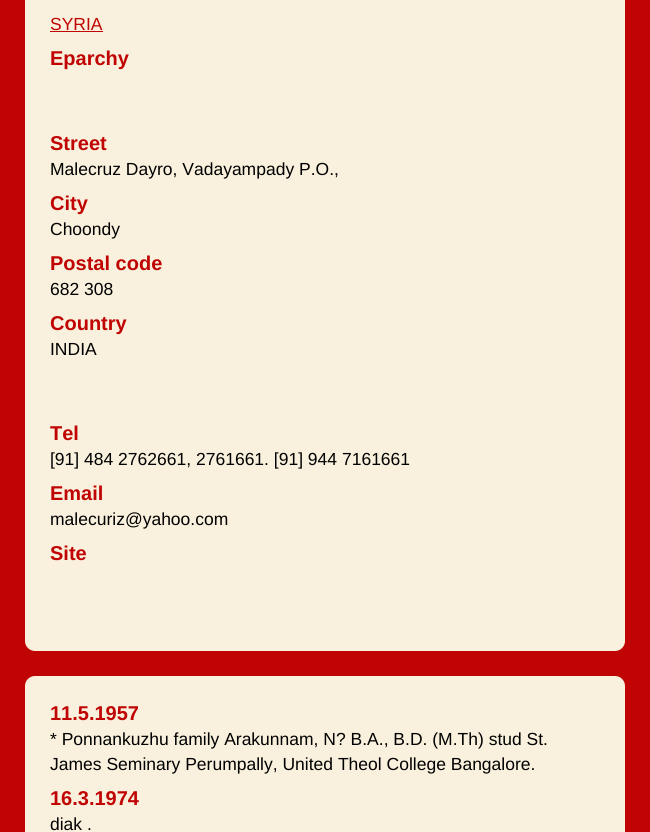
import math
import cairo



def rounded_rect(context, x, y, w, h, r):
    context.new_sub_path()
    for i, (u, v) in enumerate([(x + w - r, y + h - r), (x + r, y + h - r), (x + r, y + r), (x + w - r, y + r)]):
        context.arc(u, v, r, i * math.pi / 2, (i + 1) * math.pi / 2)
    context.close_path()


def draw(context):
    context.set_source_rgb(192 / 255, 3 / 255, 3 / 255)
    context.paint()
    context.set_source_rgb(249 / 255, 241 / 255, 221 / 255)
    rounded_rect(context, 25, -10, 600, 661, 10)
    context.fill()
    context.set_source_rgb(192 / 255, 3 / 255, 3 / 255)
    context.rectangle(50, 31, 53, 1)
    context.fill()
    context.set_source_rgb(249 / 255, 241 / 255, 221 / 255)
    rounded_rect(context, 25, 676, 600, 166, 10)
    context.fill()
    context.select_font_face("Liberation Sans")
    context.set_font_size(17.5)
    context.set_source_rgb(192 / 255, 3 / 255, 3 / 255)
    context.move_to(50, 30)
    context.show_text("SYRIA")
    context.select_font_face("Liberation Sans", cairo.FontSlant.NORMAL, cairo.FontWeight.BOLD)
    context.set_font_size(20)
    context.move_to(50, 65)
    context.show_text("Eparchy")
    context.move_to(50, 150)
    context.show_text("Street")
    context.select_font_face("Liberation Sans")
    context.set_font_size(17.5)
    context.set_source_rgb(0, 0, 0)
    context.move_to(50, 175)
    context.show_text("Malecruz Dayro, Vadayampady P.O.,")
    context.select_font_face("Liberation Sans", cairo.FontSlant.NORMAL, cairo.FontWeight.BOLD)
    context.set_font_size(20)
    context.set_source_rgb(192 / 255, 3 / 255, 3 / 255)
    context.move_to(50, 210)
    context.show_text("City")
    context.select_font_face("Liberation Sans")
    context.set_font_size(17.5)
    context.set_source_rgb(0, 0, 0)
    context.move_to(50, 235)
    context.show_text("Choondy")
    context.select_font_face("Liberation Sans", cairo.FontSlant.NORMAL, cairo.FontWeight.BOLD)
    context.set_font_size(20)
    context.set_source_rgb(192 / 255, 3 / 255, 3 / 255)
    context.move_to(50, 270)
    context.show_text("Postal code")
    context.select_font_face("Liberation Sans")
    context.set_font_size(17.5)
    context.set_source_rgb(0, 0, 0)
    context.move_to(50, 295)
    context.show_text("682 308")
    context.select_font_face("Liberation Sans", cairo.FontSlant.NORMAL, cairo.FontWeight.BOLD)
    context.set_font_size(20)
    context.set_source_rgb(192 / 255, 3 / 255, 3 / 255)
    context.move_to(50, 330)
    context.show_text("Country")
    context.select_font_face("Liberation Sans")
    context.set_font_size(17.5)
    context.set_source_rgb(0, 0, 0)
    context.move_to(50, 355)
    context.show_text("INDIA")
    context.select_font_face("Liberation Sans", cairo.FontSlant.NORMAL, cairo.FontWeight.BOLD)
    context.set_font_size(20)
    context.set_source_rgb(192 / 255, 3 / 255, 3 / 255)
    context.move_to(50, 440)
    context.show_text("Tel")
    context.select_font_face("Liberation Sans")
    context.set_font_size(17.5)
    context.set_source_rgb(0, 0, 0)
    context.move_to(50, 465)
    context.show_text("[91] 484 2762661, 2761661. [91] 944 7161661")
    context.select_font_face("Liberation Sans", cairo.FontSlant.NORMAL, cairo.FontWeight.BOLD)
    context.set_font_size(20)
    context.set_source_rgb(192 / 255, 3 / 255, 3 / 255)
    context.move_to(50, 500)
    context.show_text("Email")
    context.select_font_face("Liberation Sans")
    context.set_font_size(17.5)
    context.set_source_rgb(0, 0, 0)
    context.move_to(50, 525)
    context.show_text("malecuriz@yahoo.com")
    context.select_font_face("Liberation Sans", cairo.FontSlant.NORMAL, cairo.FontWeight.BOLD)
    context.set_font_size(20)
    context.set_source_rgb(192 / 255, 3 / 255, 3 / 255)
    context.move_to(50, 560)
    context.show_text("Site")
    context.move_to(50, 720)
    context.show_text("11.5.1957")
    context.select_font_face("Liberation Sans")
    context.set_font_size(17.5)
    context.set_source_rgb(0, 0, 0)
    context.move_to(50, 745)
    context.show_text("* Ponnankuzhu family Arakunnam, N? B.A., B.D. (M.Th) stud St.")
    context.move_to(50, 770)
    context.show_text("James Seminary Perumpally, United Theol College Bangalore.")
    context.select_font_face("Liberation Sans", cairo.FontSlant.NORMAL, cairo.FontWeight.BOLD)
    context.set_font_size(20)
    context.set_source_rgb(192 / 255, 3 / 255, 3 / 255)
    context.move_to(50, 805)
    context.show_text("16.3.1974")
    context.select_font_face("Liberation Sans")
    context.set_font_size(17.5)
    context.set_source_rgb(0, 0, 0)
    context.move_to(50, 830)
    context.show_text("diak .")


surface = cairo.ImageSurface(cairo.Format.RGB24, 650, 832)
context = cairo.Context(surface)
options = cairo.FontOptions()
options.set_hint_metrics(cairo.HintMetrics.OFF)
options.set_hint_style(cairo.HintStyle.NONE)
context.set_font_options(options)
context.set_miter_limit(4)
draw(context)
surface.write_to_png("out.png")
